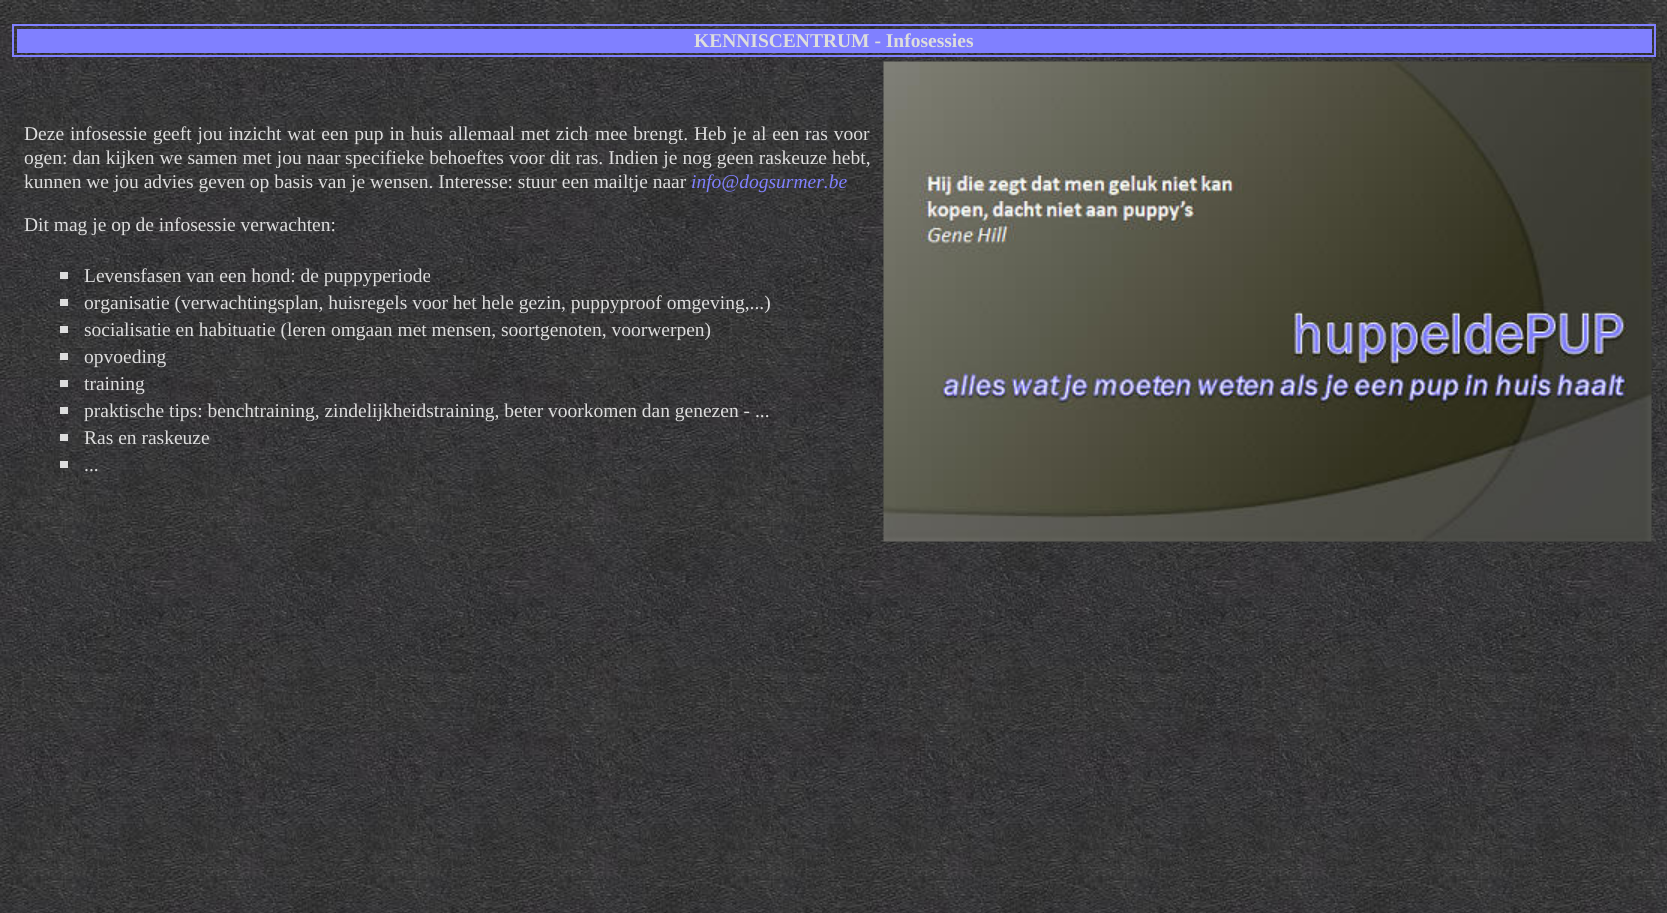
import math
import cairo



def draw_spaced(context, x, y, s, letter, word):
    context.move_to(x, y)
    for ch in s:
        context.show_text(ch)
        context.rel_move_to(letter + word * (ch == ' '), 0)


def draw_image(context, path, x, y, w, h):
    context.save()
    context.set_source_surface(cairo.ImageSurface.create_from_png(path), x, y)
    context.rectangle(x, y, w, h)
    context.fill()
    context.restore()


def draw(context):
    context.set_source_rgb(1, 1, 1)
    context.paint()
    draw_image(context, "images/1.png", 0, 0, 1667, 913)
    context.rectangle(13, 25, 1642, 31)
    context.set_source_rgb(128 / 255, 128 / 255, 1)
    context.stroke()
    context.rectangle(17, 29, 1635, 24)
    context.fill()
    context.set_source_rgb(221 / 255, 221 / 255, 221 / 255)
    context.rectangle(60, 272, 8, 7)
    context.fill()
    context.rectangle(60, 299, 8, 7)
    context.fill()
    context.rectangle(60, 326, 8, 7)
    context.fill()
    context.rectangle(60, 353, 8, 7)
    context.fill()
    context.rectangle(60, 380, 8, 7)
    context.fill()
    context.rectangle(60, 407, 8, 7)
    context.fill()
    context.rectangle(60, 434, 8, 7)
    context.fill()
    context.rectangle(60, 461, 8, 7)
    context.fill()
    draw_image(context, "images/2.png", 883, 61, 769, 481)
    context.select_font_face("Liberation Serif", cairo.FontSlant.NORMAL, cairo.FontWeight.BOLD)
    context.set_font_size(19.5)
    context.move_to(694, 47)
    context.show_text("KENNISCENTRUM - Infosessies")
    context.select_font_face("Liberation Serif")
    draw_spaced(context, 24, 140, "Deze infosessie geeft jou inzicht wat een pup in huis allemaal met zich", 0, 1)
    draw_spaced(context, 595, 140, "mee brengt. Heb je al een ras voor", 0, 1)
    draw_spaced(context, 24, 164, "ogen: dan kijken we samen met jou naar", 0, 0.25)
    draw_spaced(context, 345, 164, "specifieke behoeftes voor dit ras. Indien je nog geen raskeuze hebt,", 0, 0.25)
    context.move_to(24, 188)
    context.show_text("kunnen we jou advies geven op basis van je wensen. Interesse: stuur een mailtje naar")
    context.select_font_face("Liberation Serif", cairo.FontSlant.ITALIC)
    context.set_source_rgb(128 / 255, 128 / 255, 1)
    context.move_to(691, 188)
    context.show_text("info@dogsurmer.be")
    context.select_font_face("Liberation Serif")
    context.set_source_rgb(221 / 255, 221 / 255, 221 / 255)
    context.move_to(24, 231)
    context.show_text("Dit mag je op de infosessie verwachten:")
    context.move_to(84, 282)
    context.show_text("Levensfasen van een hond: de puppyperiode")
    context.move_to(84, 309)
    context.show_text("organisatie (verwachtingsplan, huisregels voor het hele gezin, puppyproof omgeving,...)")
    context.move_to(84, 336)
    context.show_text("socialisatie en habituatie (leren omgaan met mensen, soortgenoten, voorwerpen)")
    context.move_to(84, 363)
    context.show_text("opvoeding")
    context.move_to(84, 390)
    context.show_text("training")
    context.move_to(84, 417)
    context.show_text("praktische tips: benchtraining, zindelijkheidstraining, beter voorkomen dan genezen - ...")
    context.move_to(84, 444)
    context.show_text("Ras en raskeuze")
    context.move_to(84, 471)
    context.show_text("...")


surface = cairo.ImageSurface(cairo.Format.RGB24, 1667, 913)
context = cairo.Context(surface)
options = cairo.FontOptions()
options.set_hint_metrics(cairo.HintMetrics.OFF)
options.set_hint_style(cairo.HintStyle.NONE)
context.set_font_options(options)
context.set_miter_limit(4)
draw(context)
surface.write_to_png("out.png")
